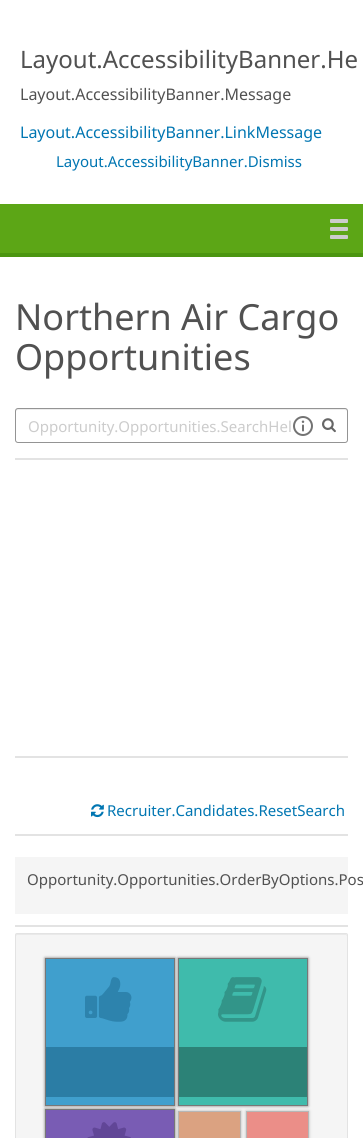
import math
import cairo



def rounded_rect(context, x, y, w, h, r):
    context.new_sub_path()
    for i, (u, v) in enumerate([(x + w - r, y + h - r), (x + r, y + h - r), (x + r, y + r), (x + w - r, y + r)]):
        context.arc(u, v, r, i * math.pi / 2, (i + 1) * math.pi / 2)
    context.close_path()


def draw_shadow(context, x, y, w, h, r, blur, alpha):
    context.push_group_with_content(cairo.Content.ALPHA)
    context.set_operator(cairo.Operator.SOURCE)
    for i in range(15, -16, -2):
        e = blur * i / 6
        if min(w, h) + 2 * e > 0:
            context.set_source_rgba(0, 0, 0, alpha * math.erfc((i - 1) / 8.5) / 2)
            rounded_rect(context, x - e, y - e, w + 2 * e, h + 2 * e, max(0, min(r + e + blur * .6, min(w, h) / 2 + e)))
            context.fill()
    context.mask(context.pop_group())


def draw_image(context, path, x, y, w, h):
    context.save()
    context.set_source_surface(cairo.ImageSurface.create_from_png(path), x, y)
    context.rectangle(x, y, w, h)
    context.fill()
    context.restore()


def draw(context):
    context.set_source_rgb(1, 1, 1)
    context.paint()
    context.set_source_rgb(92 / 255, 166 / 255, 22 / 255)
    context.rectangle(0, 204, 363, 49)
    context.fill()
    context.set_source_rgb(75 / 255, 149 / 255, 16 / 255)
    context.rectangle(0, 253, 363, 4)
    context.fill()
    context.set_source_rgb(204 / 255, 204 / 255, 204 / 255)
    rounded_rect(context, 330, 219, 18, 4, 1)
    context.fill()
    rounded_rect(context, 330, 227, 18, 4, 1)
    context.fill()
    rounded_rect(context, 330, 235, 18, 4, 1)
    context.fill()
    context.set_source_rgb(236 / 255, 236 / 255, 236 / 255)
    context.new_path()
    context.move_to(18, 410)
    context.line_to(345, 410)
    context.curve_to(346, 410, 347, 411, 347, 412)
    context.curve_to(347, 411, 347, 409, 345, 409)
    context.line_to(17, 409)
    context.line_to(16, 410)
    context.line_to(16, 412)
    context.curve_to(16, 411, 17, 410, 18, 410)
    context.close_path()
    context.fill()
    rounded_rect(context, 15.5, 408.5, 332, 34, 2.5)
    context.set_source_rgba(0, 0, 0, 0.42)
    context.set_line_width(1)
    context.stroke()
    draw_image(context, "images/1.png", 293, 416, 20, 20)
    draw_image(context, "images/2.png", 322, 418, 14, 15)
    context.set_source_rgb(227 / 255, 227 / 255, 227 / 255)
    context.rectangle(15, 458, 333, 2)
    context.fill()
    context.rectangle(15, 756, 333, 2)
    context.fill()
    draw_image(context, "images/3.png", 91, 804, 13, 14)
    context.rectangle(15, 834, 333, 2)
    context.fill()
    context.rectangle(15, 925, 333, 2)
    context.fill()
    context.set_source_rgb(245 / 255, 245 / 255, 245 / 255)
    context.rectangle(15, 857, 333, 57)
    context.fill()
    rounded_rect(context, 15, 933, 333, 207, 2)
    context.fill()
    context.set_source_rgb(233 / 255, 233 / 255, 233 / 255)
    context.new_path()
    context.move_to(17, 935)
    context.line_to(346, 935)
    context.line_to(347, 936)
    context.line_to(347, 935)
    context.line_to(346, 934)
    context.line_to(16, 934)
    context.line_to(16, 936)
    context.close_path()
    context.fill()
    rounded_rect(context, 15.5, 933.5, 332, 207, 1.5)
    context.set_source_rgb(227 / 255, 227 / 255, 227 / 255)
    context.stroke()
    context.set_source_rgb(119 / 255, 119 / 255, 119 / 255)
    draw_shadow(context, 45, 958, 130, 148, 0, 1.5, 1)
    context.set_source_rgb(64 / 255, 159 / 255, 205 / 255)
    context.rectangle(45.5, 958.5, 129, 147)
    context.fill_preserve()
    context.set_source_rgb(119 / 255, 119 / 255, 119 / 255)
    context.stroke()
    draw_image(context, "images/4.png", 85, 977, 47, 45)
    context.set_source_rgb(43 / 255, 125 / 255, 165 / 255)
    context.rectangle(46, 1047, 128, 50)
    context.fill()
    context.set_source_rgb(119 / 255, 119 / 255, 119 / 255)
    draw_shadow(context, 178, 958, 130, 148, 0, 1.5, 1)
    context.set_source_rgb(63 / 255, 187 / 255, 172 / 255)
    context.rectangle(178.5, 958.5, 129, 147)
    context.fill_preserve()
    context.set_source_rgb(119 / 255, 119 / 255, 119 / 255)
    context.stroke()
    draw_image(context, "images/5.png", 218, 977, 49, 45)
    context.set_source_rgb(44 / 255, 130 / 255, 119 / 255)
    context.rectangle(179, 1047, 128, 50)
    context.fill()
    context.set_source_rgb(119 / 255, 119 / 255, 119 / 255)
    draw_shadow(context, 45, 1109, 130, 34, 0, 1.5, 1)
    context.set_source_rgb(121 / 255, 92 / 255, 180 / 255)
    context.rectangle(45.5, 1109.5, 129, 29)
    context.fill_preserve()
    context.set_source_rgb(119 / 255, 119 / 255, 119 / 255)
    context.stroke()
    draw_image(context, "images/6.png", 87, 1122, 44, 16)
    context.set_source_rgb(119 / 255, 119 / 255, 119 / 255)
    draw_shadow(context, 178, 1111, 63, 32, 0, 1.5, 0.5)
    context.set_source_rgb(219 / 255, 162 / 255, 129 / 255)
    context.rectangle(178.5, 1111.5, 62, 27)
    context.fill_preserve()
    context.set_source_rgb(182 / 255, 182 / 255, 182 / 255)
    context.stroke()
    context.set_source_rgb(119 / 255, 119 / 255, 119 / 255)
    draw_shadow(context, 246, 1111, 63, 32, 0, 1.5, 0.5)
    context.set_source_rgb(235 / 255, 142 / 255, 136 / 255)
    context.rectangle(246.5, 1111.5, 62, 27)
    context.fill_preserve()
    context.set_source_rgb(182 / 255, 182 / 255, 182 / 255)
    context.stroke()
    context.select_font_face("Noto Sans")
    context.set_font_size(24)
    context.set_source_rgb(81 / 255, 81 / 255, 81 / 255)
    context.move_to(20, 68)
    context.show_text("Layout.AccessibilityBanner.He")
    context.set_font_size(16)
    context.move_to(20, 100)
    context.show_text("Layout.AccessibilityBanner.Message")
    context.set_source_rgb(1 / 255, 118 / 255, 178 / 255)
    context.move_to(20, 138)
    context.show_text("Layout.AccessibilityBanner.LinkMessage")
    context.set_font_size(15)
    context.move_to(56, 167)
    context.show_text("Layout.AccessibilityBanner.Dismiss")
    context.set_font_size(36)
    context.set_source_rgb(81 / 255, 81 / 255, 81 / 255)
    context.move_to(15, 330)
    context.show_text("Northern Air Cargo")
    context.move_to(15, 370)
    context.show_text("Opportunities")
    context.set_font_size(15)
    context.set_source_rgb(204 / 255, 204 / 255, 204 / 255)
    context.move_to(28, 432)
    context.show_text("Opportunity.Opportunities.SearchHel")
    context.set_source_rgb(1 / 255, 118 / 255, 178 / 255)
    context.move_to(107, 816)
    context.show_text("Recruiter.Candidates.ResetSearch")
    context.set_source_rgb(81 / 255, 81 / 255, 81 / 255)
    context.move_to(27, 885)
    context.show_text("Opportunity.Opportunities.OrderByOptions.Pos")


surface = cairo.ImageSurface(cairo.Format.RGB24, 363, 1138)
context = cairo.Context(surface)
options = cairo.FontOptions()
options.set_hint_metrics(cairo.HintMetrics.OFF)
options.set_hint_style(cairo.HintStyle.NONE)
context.set_font_options(options)
context.set_miter_limit(4)
draw(context)
surface.write_to_png("out.png")
